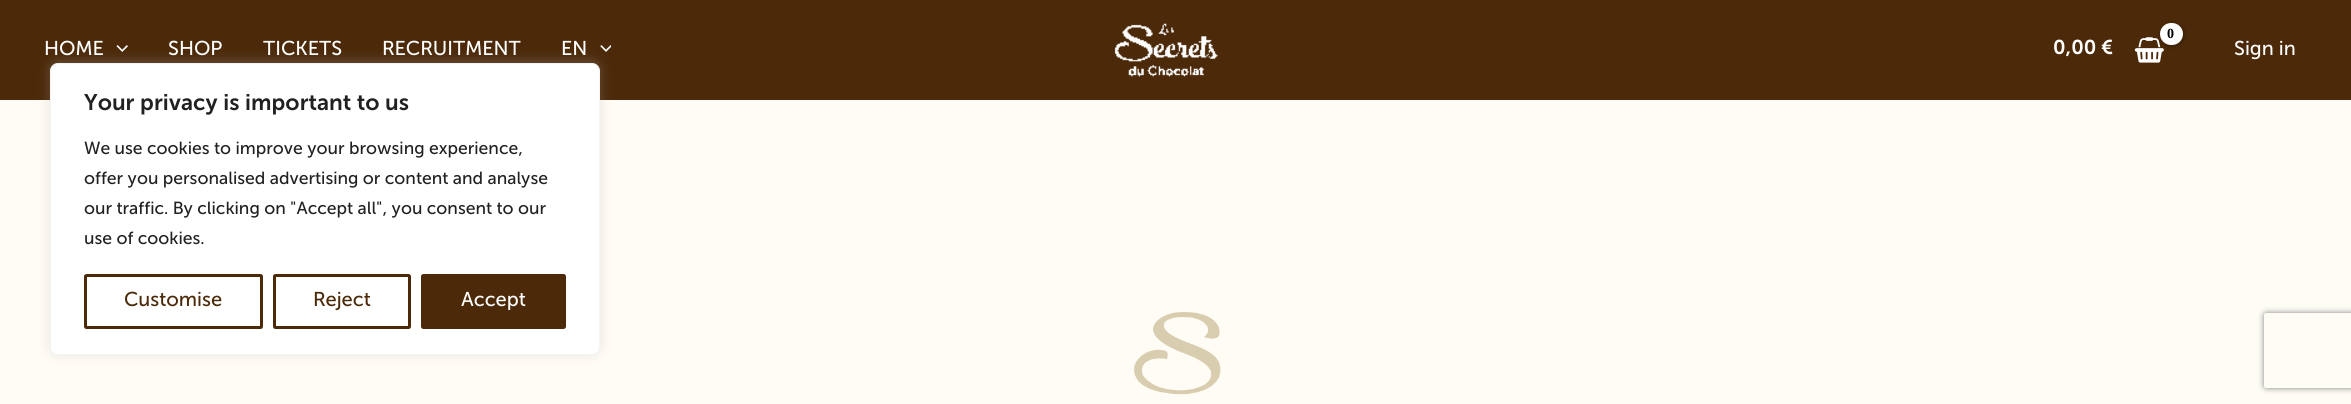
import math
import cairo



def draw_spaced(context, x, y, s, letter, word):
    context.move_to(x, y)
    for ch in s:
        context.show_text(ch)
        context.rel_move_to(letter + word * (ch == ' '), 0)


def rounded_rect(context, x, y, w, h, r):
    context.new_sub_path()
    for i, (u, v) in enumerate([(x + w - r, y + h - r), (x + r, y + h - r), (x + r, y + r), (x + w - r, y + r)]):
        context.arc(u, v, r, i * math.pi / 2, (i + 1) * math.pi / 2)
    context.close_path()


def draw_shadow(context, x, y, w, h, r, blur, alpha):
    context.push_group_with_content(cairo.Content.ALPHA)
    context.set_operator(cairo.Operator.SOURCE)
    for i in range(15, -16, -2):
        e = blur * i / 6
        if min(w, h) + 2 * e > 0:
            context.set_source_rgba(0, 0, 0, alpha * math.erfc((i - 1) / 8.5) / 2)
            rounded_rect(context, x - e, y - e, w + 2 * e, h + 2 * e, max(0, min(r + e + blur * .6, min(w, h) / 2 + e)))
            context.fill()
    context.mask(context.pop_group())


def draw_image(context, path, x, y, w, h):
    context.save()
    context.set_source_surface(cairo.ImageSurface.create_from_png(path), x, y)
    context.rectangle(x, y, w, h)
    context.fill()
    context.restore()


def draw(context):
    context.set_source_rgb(1, 252 / 255, 246 / 255)
    context.paint()
    context.set_source_rgb(75 / 255, 41 / 255, 9 / 255)
    context.rectangle(0, 0, 2351, 100)
    context.fill()
    draw_image(context, "images/1.png", 116, 45, 12, 7)
    draw_image(context, "images/2.png", 600, 45, 11, 7)
    draw_image(context, "images/3.png", 1114, 23, 104, 54)
    draw_image(context, "images/4.png", 2134, 37, 30, 26)
    context.set_source_rgb(0, 0, 0)
    draw_shadow(context, 2161, 24, 23, 22, 11, 2, 0.3)
    context.set_source_rgb(1, 1, 1)
    rounded_rect(context, 2160, 23, 23, 22, 11)
    context.fill()
    draw_image(context, "images/5.png", 1134, 312, 87, 83)
    context.set_source_rgb(172 / 255, 171 / 255, 171 / 255)
    draw_shadow(context, 50, 61, 550, 293, 8, 6, 0.3)
    context.set_source_rgb(1, 1, 1)
    rounded_rect(context, 50.5, 63.5, 549, 291, 7.5)
    context.fill_preserve()
    context.set_source_rgb(244 / 255, 244 / 255, 244 / 255)
    context.set_line_width(1)
    context.stroke()
    rounded_rect(context, 85.5, 275.5, 176, 52, 1)
    context.set_source_rgb(75 / 255, 41 / 255, 9 / 255)
    context.set_line_width(3)
    context.stroke()
    rounded_rect(context, 274.5, 275.5, 135, 52, 1)
    context.stroke()
    rounded_rect(context, 422.5, 275.5, 142, 52, 1)
    context.fill_preserve()
    context.stroke()
    context.save()
    context.set_fill_rule(cairo.FillRule.EVEN_ODD)
    context.new_path()
    context.move_to(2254, 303)
    context.line_to(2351, 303)
    context.line_to(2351, 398)
    context.line_to(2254, 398)
    context.close_path()
    context.move_to(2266.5, 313)
    context.line_to(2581.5, 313)
    context.curve_to(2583, 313, 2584, 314, 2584, 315.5)
    context.line_to(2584, 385.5)
    context.curve_to(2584, 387, 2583, 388, 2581.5, 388)
    context.line_to(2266.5, 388)
    context.curve_to(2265, 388, 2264, 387, 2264, 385.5)
    context.line_to(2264, 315.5)
    context.curve_to(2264, 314, 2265, 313, 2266.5, 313)
    context.close_path()
    context.clip()
    context.set_source_rgb(128 / 255, 128 / 255, 128 / 255)
    draw_shadow(context, 2264, 313, 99, 75, 2.5, 3, 1)
    context.restore()
    context.select_font_face("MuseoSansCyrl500")
    context.set_font_size(20)
    context.set_source_rgb(1, 1, 1)
    context.move_to(44, 55)
    context.show_text("HOME")
    context.move_to(168, 55)
    context.show_text("SHOP")
    context.move_to(263, 55)
    context.show_text("TICKETS")
    context.move_to(382, 55)
    context.show_text("RECRUITMENT")
    context.move_to(561, 55)
    context.show_text("EN")
    context.select_font_face("Liberation Serif", cairo.FontSlant.NORMAL, cairo.FontWeight.BOLD)
    context.set_font_size(14)
    context.set_source_rgb(0, 0, 0)
    draw_spaced(context, 2167, 38, "0", -1, 0)
    context.select_font_face("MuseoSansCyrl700")
    context.set_font_size(20)
    context.set_source_rgb(1, 1, 1)
    context.move_to(2053, 54)
    context.show_text("0,00 €")
    context.select_font_face("MuseoSansCyrl500")
    context.move_to(2234, 55)
    context.show_text("Sign in")
    context.select_font_face("MuseoSansCyrl700")
    context.set_font_size(22.5)
    context.set_source_rgb(33 / 255, 33 / 255, 33 / 255)
    context.move_to(84, 110)
    context.show_text("Your privacy is important to us")
    context.select_font_face("MuseoSansCyrl500")
    context.set_font_size(17.5)
    context.move_to(84, 154)
    context.show_text("We use cookies to improve your browsing experience,")
    context.move_to(84, 184)
    context.show_text("offer you personalised advertising or content and analyse")
    context.move_to(84, 214)
    context.show_text("our traffic. By clicking on \"Accept all\", you consent to our")
    context.move_to(84, 244)
    context.show_text("use of cookies.")
    context.set_font_size(20)
    context.set_source_rgb(75 / 255, 41 / 255, 9 / 255)
    context.move_to(124, 306)
    context.show_text("Customise")
    context.move_to(313, 306)
    context.show_text("Reject")
    context.set_source_rgb(1, 1, 1)
    context.move_to(461, 306)
    context.show_text("Accept")


surface = cairo.ImageSurface(cairo.Format.RGB24, 2351, 404)
context = cairo.Context(surface)
options = cairo.FontOptions()
options.set_hint_metrics(cairo.HintMetrics.OFF)
options.set_hint_style(cairo.HintStyle.NONE)
context.set_font_options(options)
context.set_miter_limit(4)
draw(context)
surface.write_to_png("out.png")
